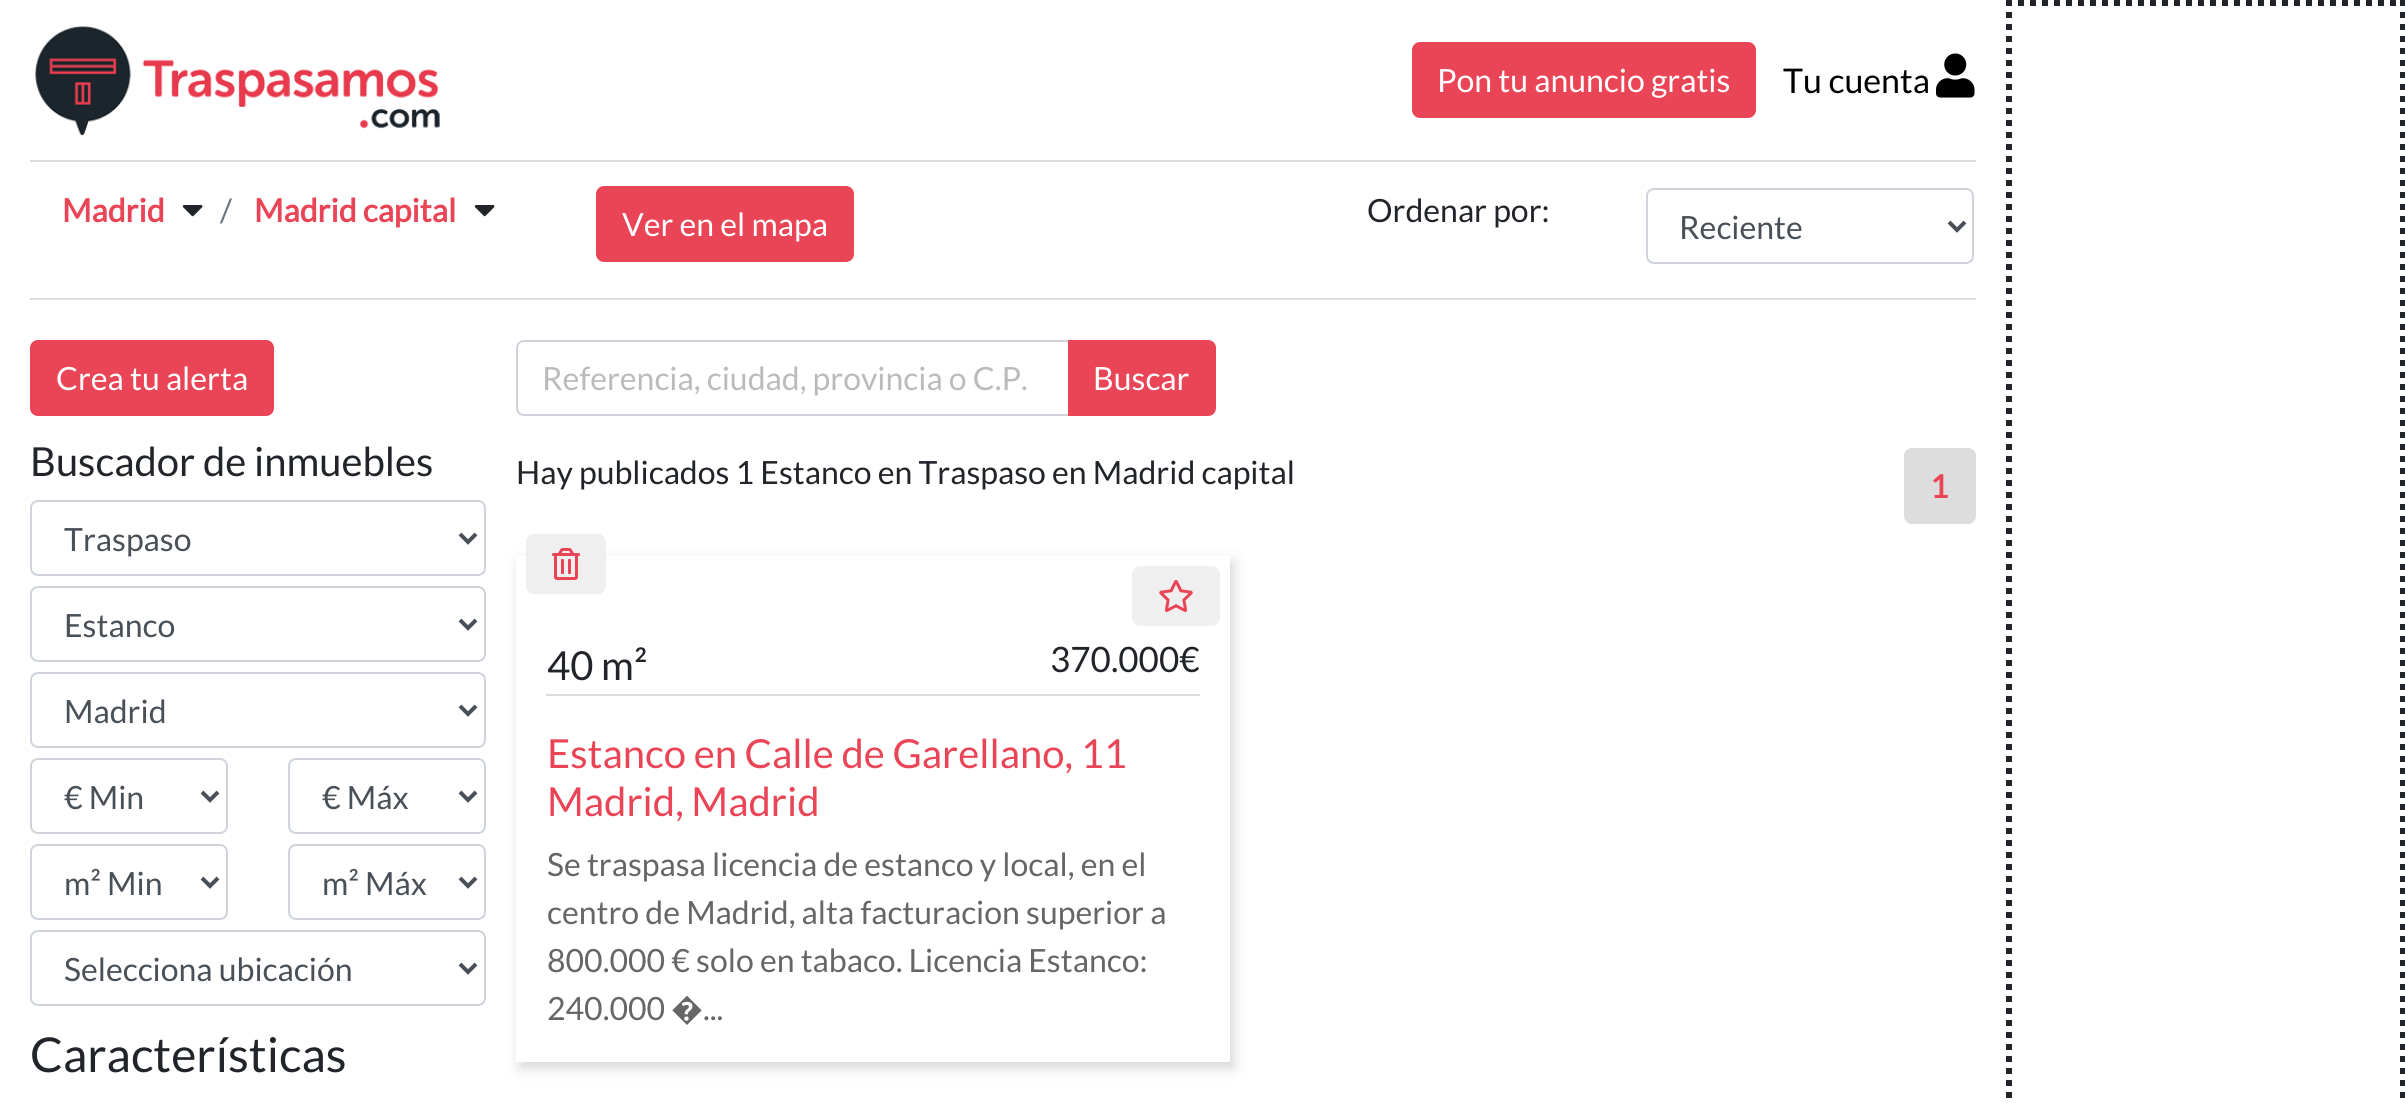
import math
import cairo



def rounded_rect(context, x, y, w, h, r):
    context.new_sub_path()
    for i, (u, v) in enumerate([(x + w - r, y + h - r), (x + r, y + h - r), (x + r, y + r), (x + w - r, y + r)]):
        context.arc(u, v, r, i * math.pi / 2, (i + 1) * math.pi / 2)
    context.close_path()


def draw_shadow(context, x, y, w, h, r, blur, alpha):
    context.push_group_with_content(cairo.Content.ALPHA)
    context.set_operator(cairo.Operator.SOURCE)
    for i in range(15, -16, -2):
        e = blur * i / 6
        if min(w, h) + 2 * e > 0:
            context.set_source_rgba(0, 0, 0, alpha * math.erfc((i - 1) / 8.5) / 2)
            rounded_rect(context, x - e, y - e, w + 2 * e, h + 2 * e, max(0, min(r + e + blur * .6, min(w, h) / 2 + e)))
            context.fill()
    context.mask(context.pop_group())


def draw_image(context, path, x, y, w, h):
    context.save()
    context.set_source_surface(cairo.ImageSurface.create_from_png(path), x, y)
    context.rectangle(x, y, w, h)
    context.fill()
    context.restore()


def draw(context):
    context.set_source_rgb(1, 1, 1)
    context.paint()
    context.set_source_rgb(221 / 255, 221 / 255, 221 / 255)
    context.rectangle(30, 160, 1946, 2)
    context.fill()
    draw_image(context, "images/1.png", 35, 26, 405, 110)
    context.set_source_rgb(234 / 255, 69 / 255, 86 / 255)
    rounded_rect(context, 1413, 43, 342, 74, 7)
    context.fill_preserve()
    context.stroke()
    draw_image(context, "images/2.png", 1936, 53, 39, 45)
    context.set_source_rgb(221 / 255, 221 / 255, 221 / 255)
    context.rectangle(30, 298, 1946, 2)
    context.fill()
    draw_image(context, "images/3.png", 182, 205, 21, 12)
    draw_image(context, "images/3.png", 474, 205, 21, 12)
    context.set_source_rgb(234 / 255, 69 / 255, 86 / 255)
    rounded_rect(context, 597, 187, 256, 74, 7)
    context.fill_preserve()
    context.stroke()
    rounded_rect(context, 1647, 189, 326, 74, 7)
    context.set_source_rgb(206 / 255, 212 / 255, 218 / 255)
    context.stroke()
    context.new_path()
    context.move_to(1949, 222)
    context.line_to(1957, 230)
    context.line_to(1965, 222)
    context.set_source_rgb(73 / 255, 80 / 255, 87 / 255)
    context.set_line_width(4)
    context.stroke()
    context.set_source_rgb(234 / 255, 69 / 255, 86 / 255)
    rounded_rect(context, 31, 341, 242, 74, 7)
    context.fill_preserve()
    context.set_line_width(2)
    context.stroke()
    rounded_rect(context, 31, 501, 454, 74, 7)
    context.set_source_rgb(206 / 255, 212 / 255, 218 / 255)
    context.stroke()
    context.new_path()
    context.move_to(460, 534)
    context.line_to(468, 542)
    context.line_to(476, 534)
    context.set_source_rgb(73 / 255, 80 / 255, 87 / 255)
    context.set_line_width(4)
    context.stroke()
    rounded_rect(context, 31, 587, 454, 74, 7)
    context.set_source_rgb(206 / 255, 212 / 255, 218 / 255)
    context.set_line_width(2)
    context.stroke()
    context.new_path()
    context.move_to(460, 620)
    context.line_to(468, 628)
    context.line_to(476, 620)
    context.set_source_rgb(73 / 255, 80 / 255, 87 / 255)
    context.set_line_width(4)
    context.stroke()
    rounded_rect(context, 31, 673, 454, 74, 7)
    context.set_source_rgb(206 / 255, 212 / 255, 218 / 255)
    context.set_line_width(2)
    context.stroke()
    context.new_path()
    context.move_to(460, 706)
    context.line_to(468, 714)
    context.line_to(476, 706)
    context.set_source_rgb(73 / 255, 80 / 255, 87 / 255)
    context.set_line_width(4)
    context.stroke()
    rounded_rect(context, 31, 759, 196, 74, 7)
    context.set_source_rgb(206 / 255, 212 / 255, 218 / 255)
    context.set_line_width(2)
    context.stroke()
    context.new_path()
    context.move_to(202, 792)
    context.line_to(210, 800)
    context.line_to(218, 792)
    context.set_source_rgb(73 / 255, 80 / 255, 87 / 255)
    context.set_line_width(4)
    context.stroke()
    rounded_rect(context, 289, 759, 196, 74, 7)
    context.set_source_rgb(206 / 255, 212 / 255, 218 / 255)
    context.set_line_width(2)
    context.stroke()
    context.new_path()
    context.move_to(460, 792)
    context.line_to(468, 800)
    context.line_to(476, 792)
    context.set_source_rgb(73 / 255, 80 / 255, 87 / 255)
    context.set_line_width(4)
    context.stroke()
    rounded_rect(context, 31, 845, 196, 74, 7)
    context.set_source_rgb(206 / 255, 212 / 255, 218 / 255)
    context.set_line_width(2)
    context.stroke()
    context.new_path()
    context.move_to(202, 878)
    context.line_to(210, 886)
    context.line_to(218, 878)
    context.set_source_rgb(73 / 255, 80 / 255, 87 / 255)
    context.set_line_width(4)
    context.stroke()
    rounded_rect(context, 289, 845, 196, 74, 7)
    context.set_source_rgb(206 / 255, 212 / 255, 218 / 255)
    context.set_line_width(2)
    context.stroke()
    context.new_path()
    context.move_to(460, 878)
    context.line_to(468, 886)
    context.line_to(476, 878)
    context.set_source_rgb(73 / 255, 80 / 255, 87 / 255)
    context.set_line_width(4)
    context.stroke()
    rounded_rect(context, 31, 931, 454, 74, 7)
    context.set_source_rgb(206 / 255, 212 / 255, 218 / 255)
    context.set_line_width(2)
    context.stroke()
    context.new_path()
    context.move_to(460, 964)
    context.line_to(468, 972)
    context.line_to(476, 964)
    context.set_source_rgb(73 / 255, 80 / 255, 87 / 255)
    context.set_line_width(4)
    context.stroke()
    context.new_path()
    context.move_to(524, 341)
    context.line_to(1069, 341)
    context.line_to(1069, 415)
    context.line_to(524, 415)
    context.curve_to(520, 415, 517, 412, 517, 408)
    context.line_to(517, 348)
    context.curve_to(517, 344, 520, 341, 524, 341)
    context.close_path()
    context.set_source_rgb(206 / 255, 212 / 255, 218 / 255)
    context.set_line_width(2)
    context.stroke()
    context.set_source_rgb(234 / 255, 69 / 255, 86 / 255)
    context.new_path()
    context.move_to(1069, 341)
    context.line_to(1208, 341)
    context.curve_to(1212, 341, 1215, 344, 1215, 348)
    context.line_to(1215, 408)
    context.curve_to(1215, 412, 1212, 415, 1208, 415)
    context.line_to(1069, 415)
    context.close_path()
    context.fill_preserve()
    context.stroke()
    context.set_source_rgb(221 / 255, 221 / 255, 221 / 255)
    rounded_rect(context, 1905, 449, 70, 74, 7)
    context.fill_preserve()
    context.stroke()
    context.save()
    context.set_fill_rule(cairo.FillRule.EVEN_ODD)
    context.new_path()
    context.move_to(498, 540)
    context.line_to(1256, 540)
    context.line_to(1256, 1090)
    context.line_to(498, 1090)
    context.close_path()
    context.move_to(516, 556)
    context.line_to(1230, 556)
    context.line_to(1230, 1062)
    context.line_to(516, 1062)
    context.close_path()
    context.clip()
    context.set_source_rgb(50 / 255, 50 / 255, 50 / 255)
    draw_shadow(context, 520, 562, 714, 506, 0, 7, 0.2)
    context.restore()
    context.set_source_rgb(239 / 255, 239 / 255, 239 / 255)
    rounded_rect(context, 526, 534, 80, 60, 8)
    context.fill()
    draw_image(context, "images/4.png", 552, 548, 28, 32)
    rounded_rect(context, 1132, 566, 88, 60, 8)
    context.fill()
    draw_image(context, "images/5.png", 1159, 580, 34, 32)
    context.set_source_rgb(221 / 255, 221 / 255, 221 / 255)
    context.rectangle(546, 694, 654, 2)
    context.fill()
    context.new_path()
    context.move_to(2006, 3)
    context.line_to(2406, 3)
    context.set_source_rgb(33 / 255, 37 / 255, 41 / 255)
    context.set_line_width(6)
    context.set_dash([6, 6])
    context.stroke()
    context.new_path()
    context.move_to(2403, 0)
    context.line_to(2403, 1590)
    context.stroke()
    context.new_path()
    context.move_to(2009, 0)
    context.line_to(2009, 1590)
    context.stroke()
    context.select_font_face("Lato")
    context.set_font_size(32)
    context.set_source_rgb(1, 1, 1)
    context.move_to(1437, 92)
    context.show_text("Pon tu anuncio gratis")
    context.set_font_size(34)
    context.set_source_rgb(0, 0, 0)
    context.move_to(1783, 93)
    context.show_text("Tu cuenta")
    context.select_font_face("Lato", cairo.FontSlant.NORMAL, cairo.FontWeight.BOLD)
    context.set_font_size(32)
    context.set_source_rgb(234 / 255, 69 / 255, 86 / 255)
    context.move_to(62, 222)
    context.show_text("Madrid")
    context.select_font_face("Lato")
    context.set_source_rgb(108 / 255, 117 / 255, 125 / 255)
    context.move_to(220, 222)
    context.show_text("/")
    context.select_font_face("Lato", cairo.FontSlant.NORMAL, cairo.FontWeight.BOLD)
    context.set_source_rgb(234 / 255, 69 / 255, 86 / 255)
    context.move_to(254, 222)
    context.show_text("Madrid capital")
    context.select_font_face("Lato")
    context.set_source_rgb(1, 1, 1)
    context.move_to(622, 236)
    context.show_text("Ver en el mapa")
    context.set_source_rgb(33 / 255, 37 / 255, 41 / 255)
    context.move_to(1367, 222)
    context.show_text("Ordenar por:")
    context.set_source_rgb(73 / 255, 80 / 255, 87 / 255)
    context.move_to(1679, 239)
    context.show_text("Reciente")
    context.set_source_rgb(1, 1, 1)
    context.move_to(56, 390)
    context.show_text("Crea tu alerta")
    context.set_font_size(40)
    context.set_source_rgb(33 / 255, 37 / 255, 41 / 255)
    context.move_to(30, 476)
    context.show_text("Buscador de inmuebles")
    context.set_font_size(32)
    context.set_source_rgb(73 / 255, 80 / 255, 87 / 255)
    context.move_to(64, 551)
    context.show_text("Traspaso")
    context.move_to(64, 637)
    context.show_text("Estanco")
    context.move_to(64, 723)
    context.show_text("Madrid")
    context.move_to(64, 809)
    context.show_text("€ Min")
    context.move_to(322, 809)
    context.show_text("€ Máx")
    context.move_to(64, 895)
    context.show_text("m² Min")
    context.move_to(322, 895)
    context.show_text("m² Máx")
    context.move_to(64, 981)
    context.show_text("Selecciona ubicación")
    context.set_font_size(48)
    context.set_source_rgb(33 / 255, 37 / 255, 41 / 255)
    context.move_to(30, 1072)
    context.show_text("Características")
    context.set_font_size(32)
    context.set_source_rgb(187 / 255, 187 / 255, 187 / 255)
    context.move_to(542, 390)
    context.show_text("Referencia, ciudad, provincia o C.P.")
    context.set_source_rgb(1, 1, 1)
    context.move_to(1093, 390)
    context.show_text("Buscar")
    context.set_source_rgb(33 / 255, 37 / 255, 41 / 255)
    context.move_to(516, 484)
    context.show_text("Hay publicados 1 Estanco en Traspaso en Madrid capital")
    context.select_font_face("Lato", cairo.FontSlant.NORMAL, cairo.FontWeight.BOLD)
    context.set_source_rgb(234 / 255, 69 / 255, 86 / 255)
    context.move_to(1930, 498)
    context.show_text("1")
    context.select_font_face("Lato")
    context.set_font_size(40)
    context.set_source_rgb(33 / 255, 37 / 255, 41 / 255)
    context.move_to(547, 680)
    context.show_text("40 m²")
    context.set_font_size(35)
    context.move_to(1050, 672)
    context.show_text("370.000€")
    context.set_font_size(40)
    context.set_source_rgb(234 / 255, 69 / 255, 86 / 255)
    context.move_to(547, 768)
    context.show_text("Estanco en Calle de Garellano, 11")
    context.move_to(547, 816)
    context.show_text("Madrid, Madrid")
    context.set_font_size(32)
    context.set_source_rgb(102 / 255, 102 / 255, 102 / 255)
    context.move_to(547, 876)
    context.show_text("Se traspasa licencia de estanco y local, en el")
    context.move_to(547, 924)
    context.show_text("centro de Madrid, alta facturacion superior a")
    context.move_to(547, 972)
    context.show_text("800.000 € solo en tabaco. Licencia Estanco:")
    context.move_to(547, 1020)
    context.show_text("240.000")
    context.select_font_face("Noto Sans")
    context.move_to(671, 1020)
    context.show_text("�")
    context.select_font_face("Lato")
    context.move_to(703, 1020)
    context.show_text("...")


surface = cairo.ImageSurface(cairo.Format.RGB24, 2405, 1103)
context = cairo.Context(surface)
options = cairo.FontOptions()
options.set_hint_metrics(cairo.HintMetrics.OFF)
options.set_hint_style(cairo.HintStyle.NONE)
context.set_font_options(options)
context.set_miter_limit(4)
draw(context)
surface.write_to_png("out.png")
